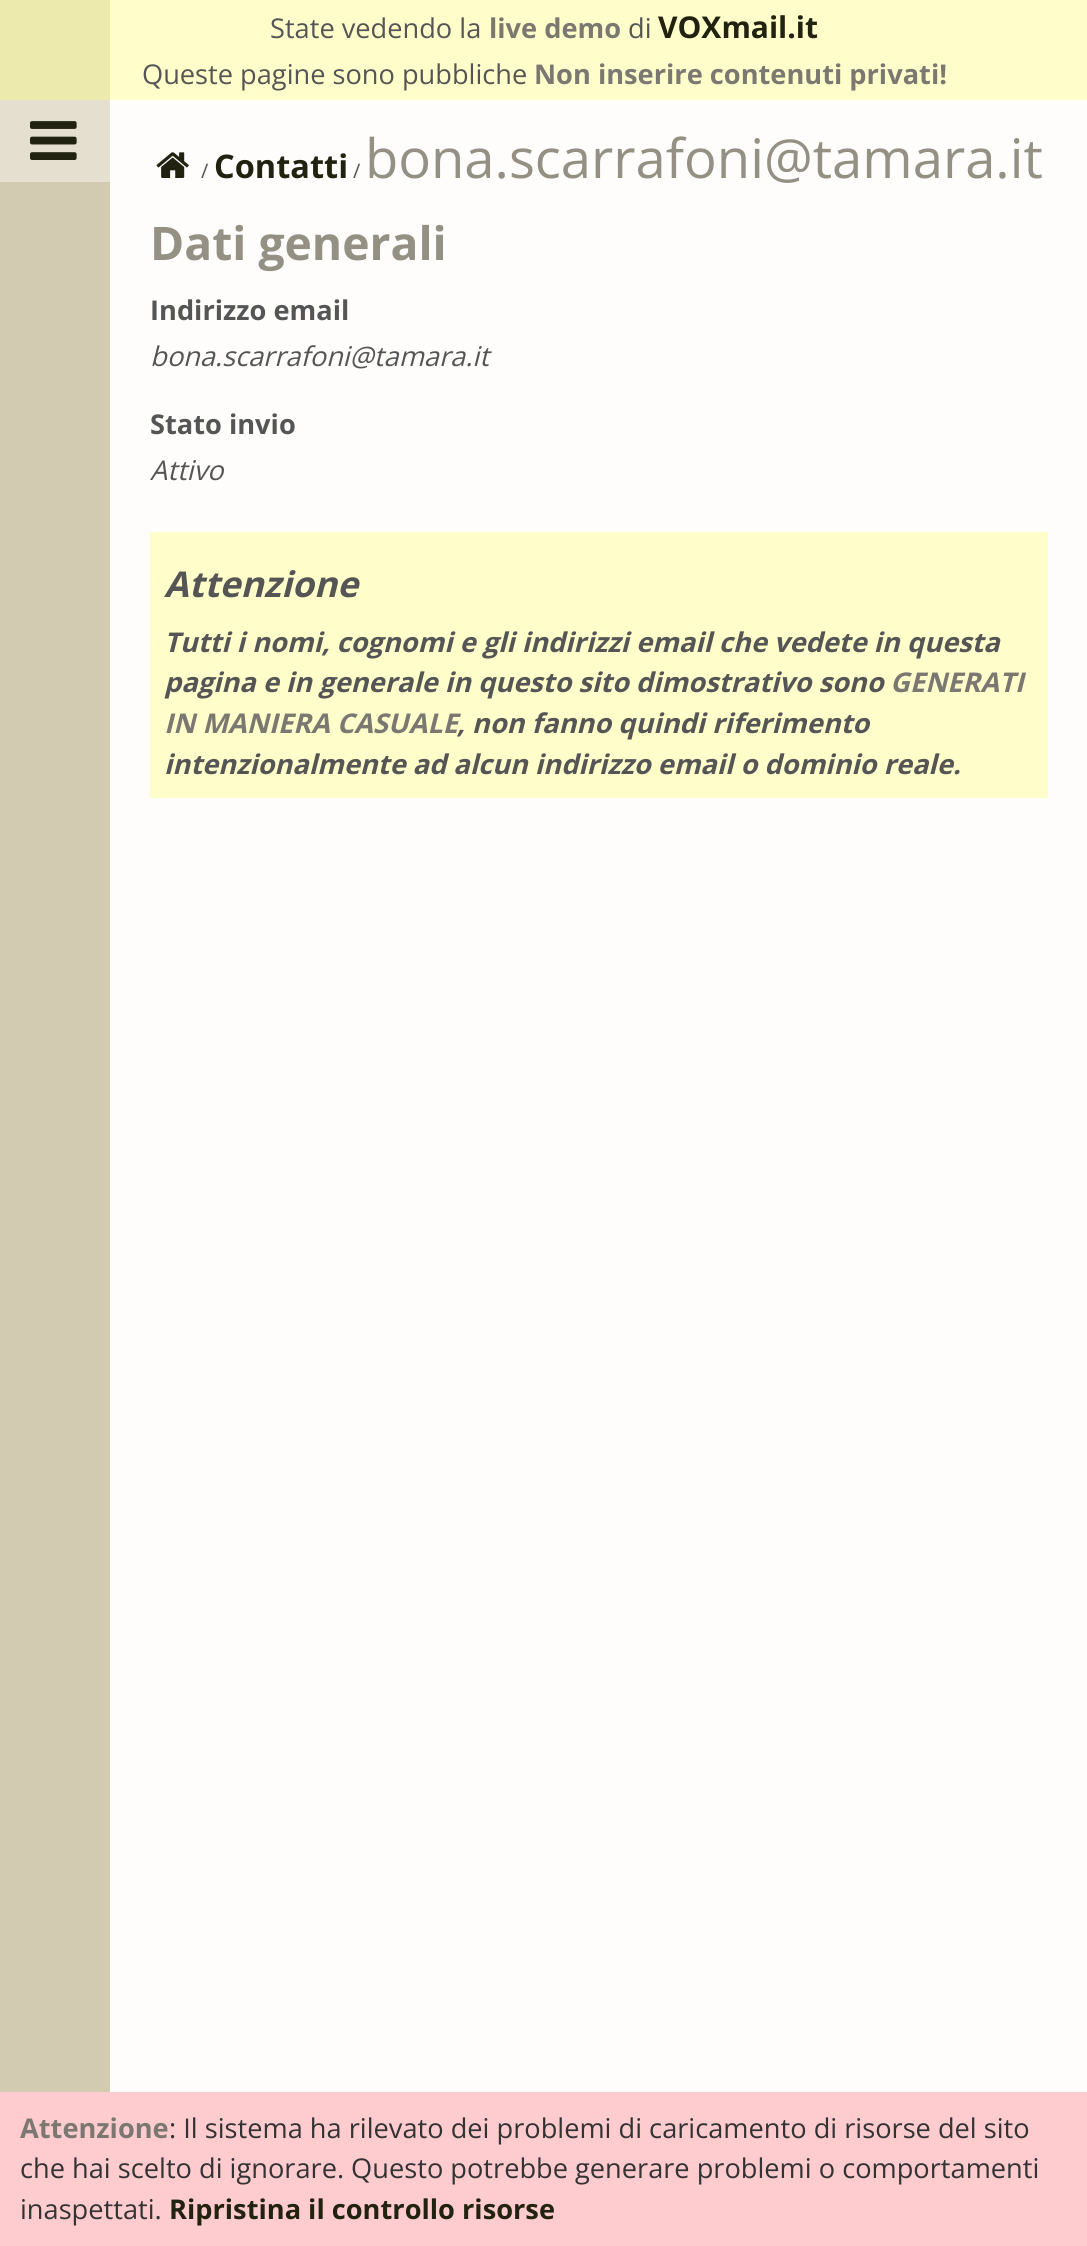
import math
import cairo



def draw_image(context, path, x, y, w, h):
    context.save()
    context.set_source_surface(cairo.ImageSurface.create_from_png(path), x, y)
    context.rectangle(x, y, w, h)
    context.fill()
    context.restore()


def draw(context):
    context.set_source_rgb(254 / 255, 253 / 255, 252 / 255)
    context.paint()
    context.set_source_rgb(1, 254 / 255, 203 / 255)
    context.rectangle(110, 0, 977, 100)
    context.fill()
    context.set_source_rgb(210 / 255, 203 / 255, 177 / 255)
    context.rectangle(0, 182, 110, 1910)
    context.fill()
    context.set_source_rgb(237 / 255, 234 / 255, 173 / 255)
    context.rectangle(0, 0, 110, 100)
    context.fill()
    context.set_source_rgb(228 / 255, 223 / 255, 207 / 255)
    context.rectangle(0, 100, 110, 82)
    context.fill()
    draw_image(context, "images/1.png", 30, 121, 47, 39)
    draw_image(context, "images/2.png", 156, 152, 33, 26)
    context.set_source_rgb(1, 254 / 255, 203 / 255)
    context.rectangle(150, 532, 898, 266)
    context.fill()
    context.set_source_rgb(254 / 255, 204 / 255, 207 / 255)
    context.rectangle(0, 2092, 1087, 154)
    context.fill()
    context.select_font_face("Open Sans")
    context.set_font_size(27.2)
    context.set_source_rgb(85 / 255, 85 / 255, 85 / 255)
    context.move_to(270, 38)
    context.show_text("State vedendo la")
    context.select_font_face("Open Sans", cairo.FontSlant.NORMAL, cairo.FontWeight.BOLD)
    context.set_source_rgb(123 / 255, 120 / 255, 113 / 255)
    context.move_to(489, 38)
    context.show_text("live demo")
    context.select_font_face("Open Sans")
    context.set_source_rgb(85 / 255, 85 / 255, 85 / 255)
    context.move_to(628, 38)
    context.show_text("di")
    context.select_font_face("Open Sans", cairo.FontSlant.NORMAL, cairo.FontWeight.BOLD)
    context.set_font_size(30)
    context.set_source_rgb(34 / 255, 34 / 255, 17 / 255)
    context.move_to(658, 38)
    context.show_text("VOXmail.it")
    context.select_font_face("Open Sans")
    context.set_font_size(27.2)
    context.set_source_rgb(85 / 255, 85 / 255, 85 / 255)
    context.move_to(142, 84)
    context.show_text("Queste pagine sono pubbliche")
    context.select_font_face("Open Sans", cairo.FontSlant.NORMAL, cairo.FontWeight.BOLD)
    context.set_source_rgb(123 / 255, 120 / 255, 113 / 255)
    context.move_to(534, 84)
    context.show_text("Non inserire contenuti privati!")
    context.select_font_face("Open Sans")
    context.set_font_size(20)
    context.set_source_rgb(85 / 255, 85 / 255, 85 / 255)
    context.move_to(201, 178)
    context.show_text("/")
    context.select_font_face("Open Sans", cairo.FontSlant.NORMAL, cairo.FontWeight.BOLD)
    context.set_font_size(32.5)
    context.set_source_rgb(34 / 255, 34 / 255, 17 / 255)
    context.move_to(214, 178)
    context.show_text("Contatti")
    context.select_font_face("Open Sans")
    context.set_font_size(20)
    context.set_source_rgb(85 / 255, 85 / 255, 85 / 255)
    context.move_to(353, 178)
    context.show_text("/")
    context.set_font_size(54.4)
    context.set_source_rgb(148 / 255, 144 / 255, 131 / 255)
    context.move_to(365, 178)
    context.show_text("bona.scarrafoni@tamara.it")
    context.select_font_face("Open Sans", cairo.FontSlant.NORMAL, cairo.FontWeight.BOLD)
    context.set_font_size(46.25)
    context.move_to(150, 260)
    context.show_text("Dati generali")
    context.set_font_size(27.2)
    context.set_source_rgb(85 / 255, 85 / 255, 85 / 255)
    context.move_to(150, 320)
    context.show_text("Indirizzo email")
    context.select_font_face("Open Sans", cairo.FontSlant.ITALIC)
    context.move_to(150, 366)
    context.show_text("bona.scarrafoni@tamara.it")
    context.select_font_face("Open Sans", cairo.FontSlant.NORMAL, cairo.FontWeight.BOLD)
    context.move_to(150, 434)
    context.show_text("Stato invio")
    context.select_font_face("Open Sans", cairo.FontSlant.ITALIC)
    context.move_to(150, 480)
    context.show_text("Attivo")
    context.select_font_face("Open Sans", cairo.FontSlant.ITALIC, cairo.FontWeight.BOLD)
    context.set_font_size(35.5)
    context.move_to(164, 597)
    context.show_text("Attenzione")
    context.set_font_size(27.2)
    context.move_to(164, 652)
    context.show_text("Tutti i nomi, cognomi e gli indirizzi email che vedete in questa")
    context.move_to(164, 692)
    context.show_text("pagina e in generale in questo sito dimostrativo sono")
    context.set_source_rgb(123 / 255, 120 / 255, 113 / 255)
    context.move_to(890, 692)
    context.show_text("GENERATI")
    context.move_to(164, 733)
    context.show_text("IN MANIERA CASUALE")
    context.set_source_rgb(85 / 255, 85 / 255, 85 / 255)
    context.move_to(457, 733)
    context.show_text(", non fanno quindi riferimento")
    context.move_to(164, 774)
    context.show_text("intenzionalmente ad alcun indirizzo email o dominio reale.")
    context.select_font_face("Open Sans", cairo.FontSlant.NORMAL, cairo.FontWeight.BOLD)
    context.set_source_rgb(123 / 255, 120 / 255, 113 / 255)
    context.move_to(20, 2138)
    context.show_text("Attenzione")
    context.select_font_face("Open Sans")
    context.set_source_rgb(51 / 255, 51 / 255, 51 / 255)
    context.move_to(169, 2138)
    context.show_text(": Il sistema ha rilevato dei problemi di caricamento di risorse del sito")
    context.move_to(20, 2178)
    context.show_text("che hai scelto di ignorare. Questo potrebbe generare problemi o comportamenti")
    context.move_to(20, 2219)
    context.show_text("inaspettati.")
    context.select_font_face("Open Sans", cairo.FontSlant.NORMAL, cairo.FontWeight.BOLD)
    context.set_source_rgb(34 / 255, 34 / 255, 17 / 255)
    context.move_to(169, 2219)
    context.show_text("Ripristina il controllo risorse")


surface = cairo.ImageSurface(cairo.Format.RGB24, 1087, 2246)
context = cairo.Context(surface)
options = cairo.FontOptions()
options.set_hint_metrics(cairo.HintMetrics.OFF)
options.set_hint_style(cairo.HintStyle.NONE)
context.set_font_options(options)
context.set_miter_limit(4)
draw(context)
surface.write_to_png("out.png")
